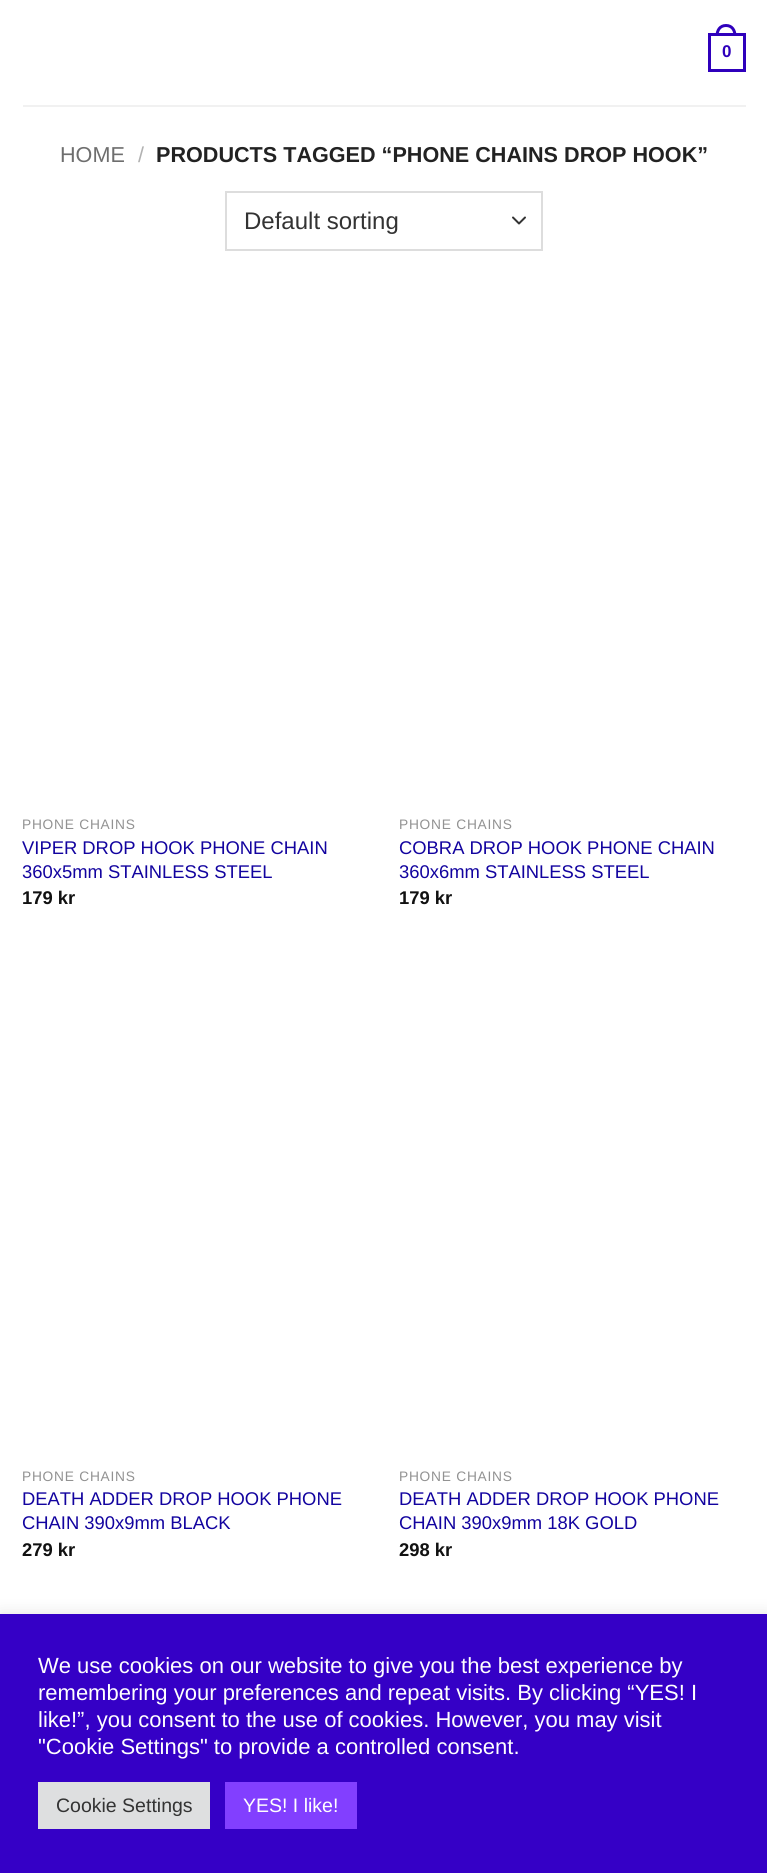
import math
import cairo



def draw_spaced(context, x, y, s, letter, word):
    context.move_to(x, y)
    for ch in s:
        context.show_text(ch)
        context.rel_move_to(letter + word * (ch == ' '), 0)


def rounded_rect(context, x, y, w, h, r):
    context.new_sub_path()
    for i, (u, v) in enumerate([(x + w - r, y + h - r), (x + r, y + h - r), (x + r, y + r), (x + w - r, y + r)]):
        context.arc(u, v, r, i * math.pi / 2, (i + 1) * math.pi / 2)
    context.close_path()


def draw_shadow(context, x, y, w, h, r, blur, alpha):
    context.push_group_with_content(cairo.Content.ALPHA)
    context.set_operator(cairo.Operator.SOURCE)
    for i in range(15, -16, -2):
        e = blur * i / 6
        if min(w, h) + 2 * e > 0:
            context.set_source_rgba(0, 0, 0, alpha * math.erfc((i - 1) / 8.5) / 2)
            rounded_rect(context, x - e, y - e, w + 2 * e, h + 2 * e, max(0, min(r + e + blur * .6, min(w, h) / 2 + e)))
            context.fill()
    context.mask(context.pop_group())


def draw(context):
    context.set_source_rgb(1, 1, 1)
    context.paint()
    context.rectangle(709.5, 34.5, 35, 36)
    context.set_source_rgb(47 / 255, 0, 188 / 255)
    context.set_line_width(3)
    context.stroke()
    context.set_fill_rule(cairo.FillRule.EVEN_ODD)
    context.new_path()
    context.move_to(726, 24)
    context.curve_to(733, 24, 736.5, 29.5, 736.5, 36)
    context.line_to(715.5, 36)
    context.curve_to(715.5, 29.5, 719, 24, 726, 24)
    context.close_path()
    context.move_to(726, 27)
    context.curve_to(731.5, 27, 733.5, 31.5, 733.5, 36)
    context.line_to(718.5, 36)
    context.curve_to(718.5, 31.5, 720.5, 27, 726, 27)
    context.close_path()
    context.fill()
    context.set_source_rgb(241 / 255, 241 / 255, 241 / 255)
    context.rectangle(23, 105, 723, 2)
    context.fill()
    context.new_path()
    context.move_to(513, 217.5)
    context.line_to(519, 223.5)
    context.line_to(525, 217.5)
    context.set_source_rgb(51 / 255, 51 / 255, 51 / 255)
    context.set_line_width(2)
    context.set_line_cap(cairo.LineCap.ROUND)
    context.set_line_join(cairo.LineJoin.ROUND)
    context.stroke()
    context.rectangle(226, 192, 316, 58)
    context.set_source_rgb(221 / 255, 221 / 255, 221 / 255)
    context.set_line_cap(cairo.LineCap.BUTT)
    context.set_line_join(cairo.LineJoin.MITER)
    context.stroke()
    context.set_source_rgb(172 / 255, 171 / 255, 171 / 255)
    draw_shadow(context, 0, 1613, 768, 259, 0, 7.5, 0.3)
    context.set_source_rgb(53 / 255, 0, 198 / 255)
    context.rectangle(0, 1614, 767, 259)
    context.fill()
    context.set_source_rgb(222 / 255, 223 / 255, 224 / 255)
    context.rectangle(38, 1782, 172, 47)
    context.fill()
    context.set_source_rgb(130 / 255, 63 / 255, 1)
    context.rectangle(225, 1782, 132, 47)
    context.fill()
    context.select_font_face("Liberation Sans", cairo.FontSlant.NORMAL, cairo.FontWeight.BOLD)
    context.set_font_size(17)
    context.set_source_rgb(47 / 255, 0, 188 / 255)
    context.move_to(722, 57)
    context.show_text("0")
    context.select_font_face("Liberation Sans")
    context.set_font_size(21.6)
    context.set_source_rgb(110 / 255, 110 / 255, 110 / 255)
    context.move_to(60, 162)
    context.show_text("HOME")
    context.set_source_rgb(178 / 255, 178 / 255, 178 / 255)
    context.move_to(138, 162)
    context.show_text("/")
    context.select_font_face("Liberation Sans", cairo.FontSlant.NORMAL, cairo.FontWeight.BOLD)
    context.set_source_rgb(34 / 255, 34 / 255, 34 / 255)
    context.move_to(156, 162)
    context.show_text("PRODUCTS TAGGED “PHONE CHAINS DROP HOOK”")
    context.select_font_face("Liberation Sans")
    context.set_font_size(24)
    context.set_source_rgb(51 / 255, 51 / 255, 51 / 255)
    context.move_to(244, 229)
    context.show_text("Default sorting")
    context.set_font_size(13.75)
    context.set_source_rgb(146 / 255, 146 / 255, 146 / 255)
    draw_spaced(context, 22, 829, "PHONE CHAINS", 0.75, 0)
    context.set_font_size(18.4)
    context.set_source_rgb(18 / 255, 3 / 255, 159 / 255)
    context.move_to(22, 854)
    context.show_text("VIPER DROP HOOK PHONE CHAIN")
    context.move_to(22, 878)
    context.show_text("360x5mm STAINLESS STEEL")
    context.select_font_face("Liberation Sans", cairo.FontSlant.NORMAL, cairo.FontWeight.BOLD)
    context.set_source_rgb(17 / 255, 17 / 255, 17 / 255)
    context.move_to(22, 904)
    context.show_text("179 kr")
    context.select_font_face("Liberation Sans")
    context.set_font_size(13.75)
    context.set_source_rgb(146 / 255, 146 / 255, 146 / 255)
    draw_spaced(context, 399, 829, "PHONE CHAINS", 0.75, 0)
    context.set_font_size(18.4)
    context.set_source_rgb(18 / 255, 3 / 255, 159 / 255)
    context.move_to(399, 854)
    context.show_text("COBRA DROP HOOK PHONE CHAIN")
    context.move_to(399, 878)
    context.show_text("360x6mm STAINLESS STEEL")
    context.select_font_face("Liberation Sans", cairo.FontSlant.NORMAL, cairo.FontWeight.BOLD)
    context.set_source_rgb(17 / 255, 17 / 255, 17 / 255)
    context.move_to(399, 904)
    context.show_text("179 kr")
    context.select_font_face("Liberation Sans")
    context.set_font_size(13.75)
    context.set_source_rgb(146 / 255, 146 / 255, 146 / 255)
    draw_spaced(context, 22, 1481, "PHONE CHAINS", 0.75, 0)
    context.set_font_size(18.4)
    context.set_source_rgb(18 / 255, 3 / 255, 159 / 255)
    context.move_to(22, 1505)
    context.show_text("DEATH ADDER DROP HOOK PHONE")
    context.move_to(22, 1529)
    context.show_text("CHAIN 390x9mm BLACK")
    context.select_font_face("Liberation Sans", cairo.FontSlant.NORMAL, cairo.FontWeight.BOLD)
    context.set_source_rgb(17 / 255, 17 / 255, 17 / 255)
    context.move_to(22, 1556)
    context.show_text("279 kr")
    context.select_font_face("Liberation Sans")
    context.set_font_size(13.75)
    context.set_source_rgb(146 / 255, 146 / 255, 146 / 255)
    draw_spaced(context, 399, 1481, "PHONE CHAINS", 0.75, 0)
    context.set_font_size(18.4)
    context.set_source_rgb(18 / 255, 3 / 255, 159 / 255)
    context.move_to(399, 1505)
    context.show_text("DEATH ADDER DROP HOOK PHONE")
    context.move_to(399, 1529)
    context.show_text("CHAIN 390x9mm 18K GOLD")
    context.select_font_face("Liberation Sans", cairo.FontSlant.NORMAL, cairo.FontWeight.BOLD)
    context.set_source_rgb(17 / 255, 17 / 255, 17 / 255)
    context.move_to(399, 1556)
    context.show_text("298 kr")
    context.select_font_face("Liberation Sans")
    context.set_font_size(22)
    context.set_source_rgb(1, 1, 1)
    context.move_to(38, 1673)
    context.show_text("We use cookies on our website to give you the best experience by")
    context.move_to(38, 1700)
    context.show_text("remembering your preferences and repeat visits. By clicking “YES! I")
    context.move_to(38, 1727)
    context.show_text("like!”, you consent to the use of cookies. However, you may visit")
    context.move_to(38, 1754)
    context.show_text("\"Cookie Settings\" to provide a controlled consent.")
    context.set_font_size(19.5)
    context.set_source_rgb(51 / 255, 51 / 255, 51 / 255)
    context.move_to(56, 1812)
    context.show_text("Cookie Settings")
    context.set_source_rgb(1, 1, 1)
    context.move_to(243, 1812)
    context.show_text("YES! I like!")


surface = cairo.ImageSurface(cairo.Format.RGB24, 767, 1873)
context = cairo.Context(surface)
options = cairo.FontOptions()
options.set_hint_metrics(cairo.HintMetrics.OFF)
options.set_hint_style(cairo.HintStyle.NONE)
context.set_font_options(options)
context.set_miter_limit(4)
draw(context)
surface.write_to_png("out.png")
